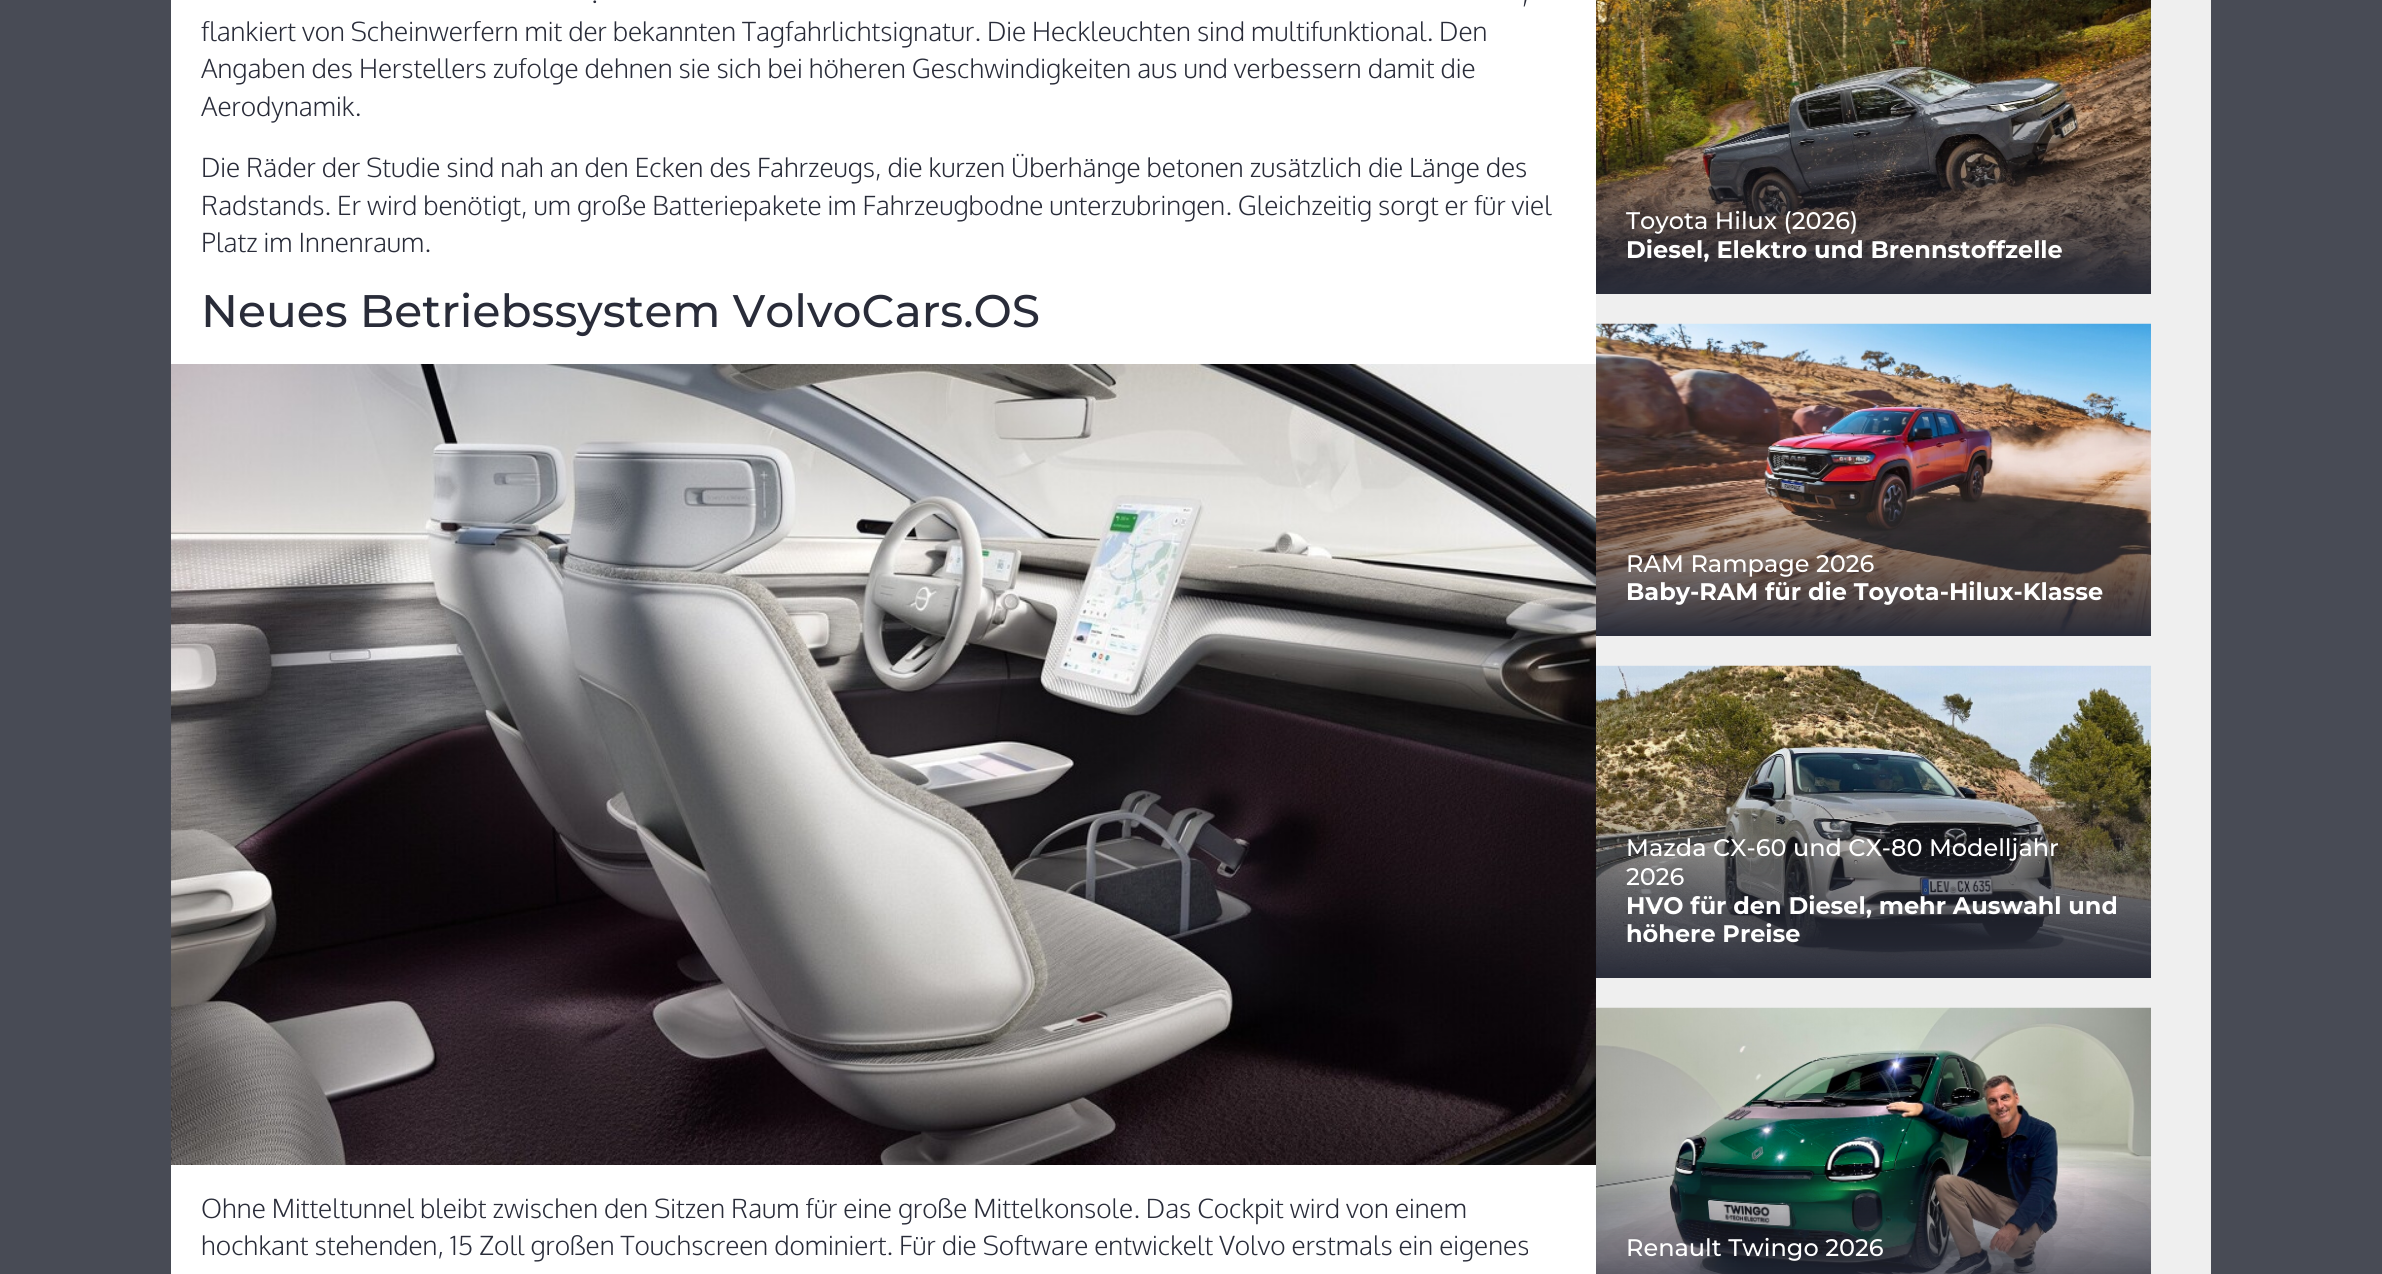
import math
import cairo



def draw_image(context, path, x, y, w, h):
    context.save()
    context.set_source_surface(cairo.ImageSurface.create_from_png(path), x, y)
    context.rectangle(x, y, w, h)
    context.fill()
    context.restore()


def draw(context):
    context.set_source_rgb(72 / 255, 75 / 255, 85 / 255)
    context.paint()
    context.set_source_rgb(1, 1, 1)
    context.rectangle(171, 0, 1425, 1274)
    context.fill()
    draw_image(context, "images/1.png", 171, 364, 1425, 801)
    context.set_source_rgb(239 / 255, 239 / 255, 239 / 255)
    context.rectangle(1596, 0, 615, 1274)
    context.fill()
    draw_image(context, "images/2.png", 1596, 0, 555, 293)
    gradient = cairo.LinearGradient(1874, 132, 1874, 294)
    gradient.add_color_stop_rgba(0, 41 / 255, 44 / 255, 57 / 255, 0)
    gradient.add_color_stop_rgba(1, 41 / 255, 44 / 255, 57 / 255, 1)
    context.set_source(gradient)
    context.rectangle(1596, 135, 555, 159)
    context.fill()
    draw_image(context, "images/3.png", 1596, 323, 555, 312)
    gradient = cairo.LinearGradient(1874, 474, 1874, 636)
    gradient.add_color_stop_rgba(0, 41 / 255, 44 / 255, 57 / 255, 0)
    gradient.add_color_stop_rgba(1, 41 / 255, 44 / 255, 57 / 255, 1)
    context.set_source(gradient)
    context.rectangle(1596, 477, 555, 159)
    context.fill()
    draw_image(context, "images/4.png", 1596, 665, 555, 312)
    gradient = cairo.LinearGradient(1874, 759, 1874, 978)
    gradient.add_color_stop_rgba(0, 41 / 255, 44 / 255, 57 / 255, 0)
    gradient.add_color_stop_rgba(1, 41 / 255, 44 / 255, 57 / 255, 1)
    context.set_source(gradient)
    context.rectangle(1596, 764, 555, 214)
    context.fill()
    draw_image(context, "images/5.png", 1596, 1007, 555, 267)
    context.select_font_face("Oxygen Light")
    context.set_font_size(26.4)
    context.set_source_rgb(41 / 255, 44 / 255, 57 / 255)
    context.move_to(591, 3)
    context.show_text(".")
    context.move_to(1522, 3)
    context.show_text(",")
    context.move_to(201, 41)
    context.show_text("flankiert von Scheinwerfern mit der bekannten Tagfahrlichtsignatur. Die Heckleuchten sind multifunktional. Den")
    context.move_to(201, 78)
    context.show_text("Angaben des Herstellers zufolge dehnen sie sich bei höheren Geschwindigkeiten aus und verbessern damit die")
    context.move_to(201, 116)
    context.show_text("Aerodynamik.")
    context.move_to(201, 177)
    context.show_text("Die Räder der Studie sind nah an den Ecken des Fahrzeugs, die kurzen Überhänge betonen zusätzlich die Länge des")
    context.move_to(201, 215)
    context.show_text("Radstands. Er wird benötigt, um große Batteriepakete im Fahrzeugbodne unterzubringen. Gleichzeitig sorgt er für viel")
    context.move_to(201, 252)
    context.show_text("Platz im Innenraum.")
    context.select_font_face("Montserrat Thin")
    context.set_font_size(45.6)
    context.move_to(201, 327)
    context.show_text("Neues Betriebssystem VolvoCars.OS")
    context.select_font_face("Oxygen Light")
    context.set_font_size(26.4)
    context.move_to(201, 1218)
    context.show_text("Ohne Mitteltunnel bleibt zwischen den Sitzen Raum für eine große Mittelkonsole. Das Cockpit wird von einem")
    context.move_to(201, 1255)
    context.show_text("hochkant stehenden, 15 Zoll großen Touchscreen dominiert. Für die Software entwickelt Volvo erstmals ein eigenes")
    context.select_font_face("Montserrat Thin")
    context.set_font_size(24)
    context.set_source_rgb(1, 1, 1)
    context.move_to(1626, 229)
    context.show_text("Toyota Hilux (2026)")
    context.select_font_face("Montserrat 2 Thin")
    context.move_to(1626, 258)
    context.show_text("Diesel, Elektro und Brennstoffzelle")
    context.select_font_face("Montserrat Thin")
    context.move_to(1626, 572)
    context.show_text("RAM Rampage 2026")
    context.select_font_face("Montserrat 2 Thin")
    context.move_to(1626, 600)
    context.show_text("Baby-RAM für die Toyota-Hilux-Klasse")
    context.select_font_face("Montserrat Thin")
    context.move_to(1626, 856)
    context.show_text("Mazda CX-60 und CX-80 Modelljahr")
    context.move_to(1626, 885)
    context.show_text("2026")
    context.select_font_face("Montserrat 2 Thin")
    context.move_to(1626, 914)
    context.show_text("HVO für den Diesel, mehr Auswahl und")
    context.move_to(1626, 942)
    context.show_text("höhere Preise")
    context.select_font_face("Montserrat Thin")
    context.move_to(1626, 1256)
    context.show_text("Renault Twingo 2026")


surface = cairo.ImageSurface(cairo.Format.RGB24, 2382, 1274)
context = cairo.Context(surface)
options = cairo.FontOptions()
options.set_hint_metrics(cairo.HintMetrics.OFF)
options.set_hint_style(cairo.HintStyle.NONE)
context.set_font_options(options)
context.set_miter_limit(4)
draw(context)
surface.write_to_png("out.png")
